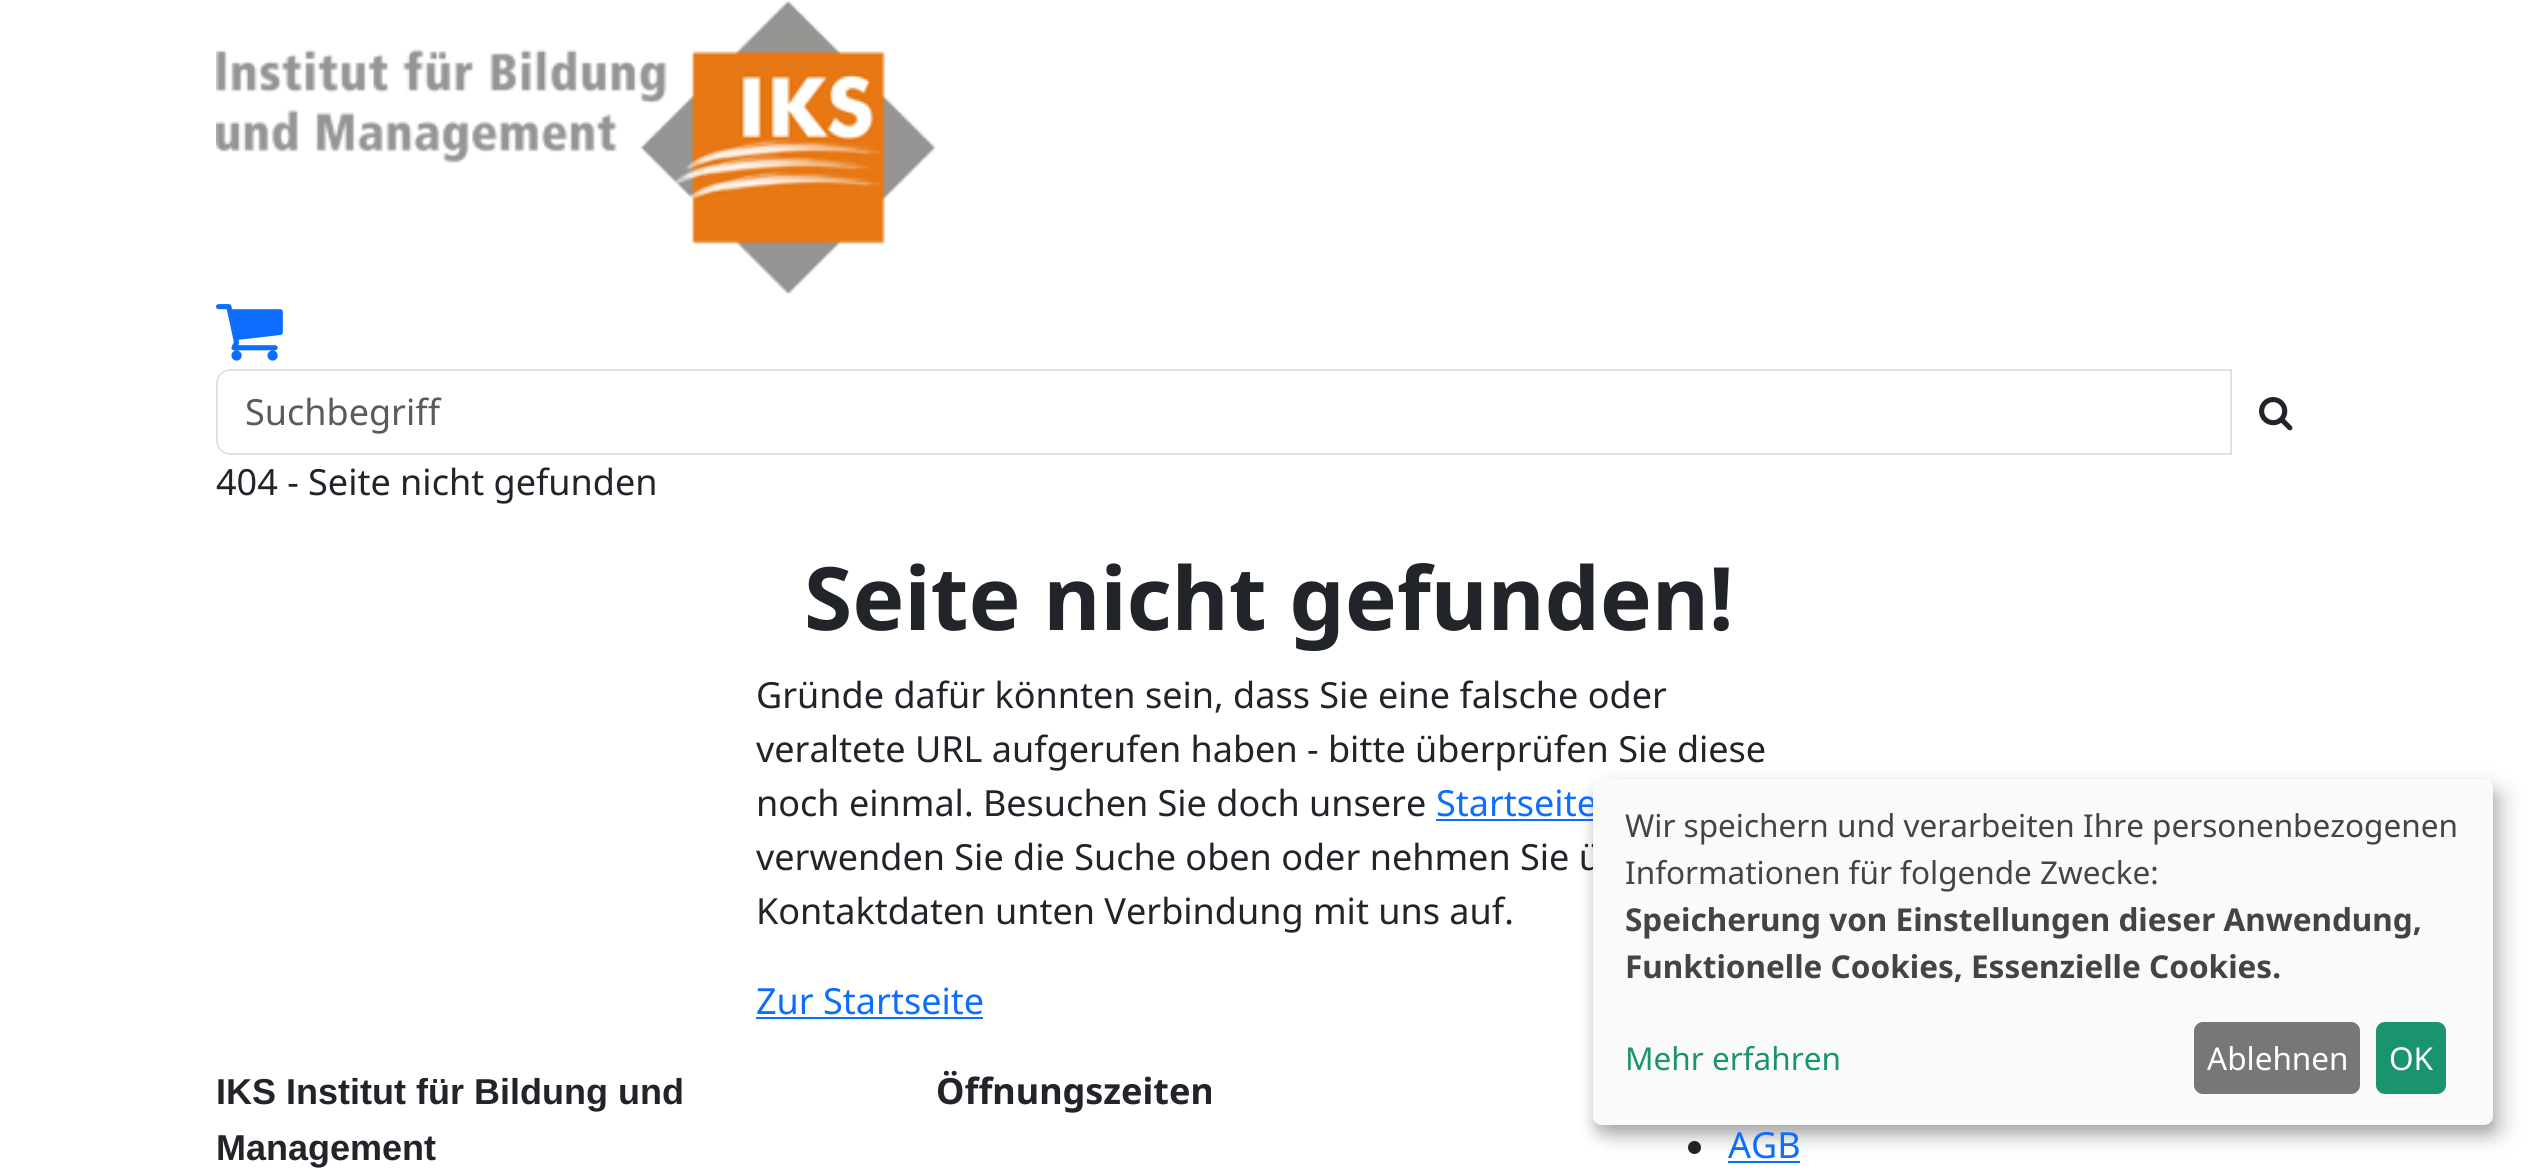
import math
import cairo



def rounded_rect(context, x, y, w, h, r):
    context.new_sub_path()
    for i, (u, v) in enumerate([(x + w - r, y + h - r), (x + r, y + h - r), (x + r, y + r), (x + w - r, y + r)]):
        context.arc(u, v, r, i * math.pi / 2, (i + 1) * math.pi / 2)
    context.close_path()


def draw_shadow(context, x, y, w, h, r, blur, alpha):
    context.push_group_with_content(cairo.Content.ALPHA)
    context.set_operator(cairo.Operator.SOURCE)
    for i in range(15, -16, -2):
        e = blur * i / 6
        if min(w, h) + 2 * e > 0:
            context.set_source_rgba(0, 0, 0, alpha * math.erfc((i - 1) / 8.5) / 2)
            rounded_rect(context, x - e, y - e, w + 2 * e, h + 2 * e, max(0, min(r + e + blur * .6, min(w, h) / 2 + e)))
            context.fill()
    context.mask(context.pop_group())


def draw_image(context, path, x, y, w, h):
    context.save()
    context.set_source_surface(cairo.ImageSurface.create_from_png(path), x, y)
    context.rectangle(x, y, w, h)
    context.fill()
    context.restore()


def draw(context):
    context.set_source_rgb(1, 1, 1)
    context.paint()
    draw_image(context, "images/1.png", 216, 0, 720, 295)
    draw_image(context, "images/2.png", 216, 304, 67, 57)
    context.new_path()
    context.move_to(230, 370)
    context.line_to(2231, 370)
    context.line_to(2231, 454)
    context.line_to(230, 454)
    context.curve_to(223, 454, 217, 448, 217, 441)
    context.line_to(217, 383)
    context.curve_to(217, 376, 223, 370, 230, 370)
    context.close_path()
    context.set_source_rgb(222 / 255, 226 / 255, 230 / 255)
    context.stroke()
    draw_image(context, "images/3.png", 2259, 397, 34, 34)
    context.set_source_rgb(13 / 255, 110 / 255, 253 / 255)
    context.rectangle(1436, 819, 162, 2)
    context.fill()
    context.rectangle(756, 1017, 227, 2)
    context.fill()
    context.set_source_rgb(33 / 255, 37 / 255, 41 / 255)
    context.arc(1694.5, 1147.5, 6.5, 0, 2 * math.pi)
    context.fill()
    context.set_source_rgb(13 / 255, 110 / 255, 253 / 255)
    context.rectangle(1728, 1161, 72, 2)
    context.fill()
    context.set_source_rgb(0, 0, 0)
    draw_shadow(context, 1604, 790, 900, 346, 9, 11, 0.19)
    draw_shadow(context, 1593, 788, 900, 346, 9, 7, 0.2)
    context.select_font_face("Noto Sans")
    context.set_font_size(36)
    context.set_source_rgb(89 / 255, 92 / 255, 95 / 255)
    context.move_to(245, 425)
    context.show_text("Suchbegriff")
    context.set_source_rgb(33 / 255, 37 / 255, 41 / 255)
    context.move_to(216, 495)
    context.show_text("404 - Seite nicht gefunden")
    context.select_font_face("Noto Sans", cairo.FontSlant.NORMAL, cairo.FontWeight.BOLD)
    context.set_font_size(87.5)
    context.move_to(804, 630)
    context.show_text("Seite nicht gefunden!")
    context.select_font_face("Noto Sans")
    context.set_font_size(36)
    context.move_to(756, 708)
    context.show_text("Gründe dafür könnten sein, dass Sie eine falsche oder")
    context.move_to(756, 762)
    context.show_text("veraltete URL aufgerufen haben - bitte überprüfen Sie diese")
    context.move_to(756, 816)
    context.show_text("noch einmal. Besuchen Sie doch unsere")
    context.set_source_rgb(13 / 255, 110 / 255, 253 / 255)
    context.move_to(1436, 816)
    context.show_text("Startseite")
    context.set_source_rgb(33 / 255, 37 / 255, 41 / 255)
    context.move_to(756, 870)
    context.show_text("verwenden Sie die Suche oben oder nehmen Sie ü")
    context.move_to(756, 924)
    context.show_text("Kontaktdaten unten Verbindung mit uns auf.")
    context.set_source_rgb(13 / 255, 110 / 255, 253 / 255)
    context.move_to(756, 1014)
    context.show_text("Zur Startseite")
    context.set_source_rgb(250 / 255, 250 / 255, 250 / 255)
    rounded_rect(context, 1593, 779, 900, 346, 9)
    context.fill()
    context.set_font_size(31.5)
    context.set_source_rgb(68 / 255, 68 / 255, 68 / 255)
    context.move_to(1625, 837)
    context.show_text("Wir speichern und verarbeiten Ihre personenbezogenen")
    context.move_to(1625, 884)
    context.show_text("Informationen für folgende Zwecke:")
    context.select_font_face("Noto Sans", cairo.FontSlant.NORMAL, cairo.FontWeight.BOLD)
    context.move_to(1625, 931)
    context.show_text("Speicherung von Einstellungen dieser Anwendung,")
    context.move_to(1625, 978)
    context.show_text("Funktionelle Cookies, Essenzielle Cookies.")
    context.select_font_face("Noto Sans")
    context.set_source_rgb(26 / 255, 147 / 255, 111 / 255)
    context.move_to(1625, 1070)
    context.show_text("Mehr erfahren")
    context.set_source_rgb(119 / 255, 119 / 255, 119 / 255)
    rounded_rect(context, 2194, 1022, 166, 72, 9)
    context.fill()
    context.set_source_rgb(1, 1, 1)
    context.move_to(2207, 1070)
    context.show_text("Ablehnen")
    context.set_source_rgb(26 / 255, 147 / 255, 111 / 255)
    rounded_rect(context, 2376, 1022, 70, 72, 9)
    context.fill()
    context.set_source_rgb(1, 1, 1)
    context.move_to(2389, 1070)
    context.show_text("OK")
    context.select_font_face("Liberation Sans", cairo.FontSlant.NORMAL, cairo.FontWeight.BOLD)
    context.set_font_size(36)
    context.set_source_rgb(33 / 255, 37 / 255, 41 / 255)
    context.move_to(216, 1104)
    context.show_text("IKS Institut für Bildung und")
    context.move_to(216, 1160)
    context.show_text("Management")
    context.select_font_face("Noto Sans", cairo.FontSlant.NORMAL, cairo.FontWeight.BOLD)
    context.move_to(936, 1104)
    context.show_text("Öffnungszeiten")
    context.select_font_face("Noto Sans")
    context.set_source_rgb(13 / 255, 110 / 255, 253 / 255)
    context.move_to(1728, 1158)
    context.show_text("AGB")


surface = cairo.ImageSurface(cairo.Format.RGB24, 2538, 1170)
context = cairo.Context(surface)
options = cairo.FontOptions()
options.set_hint_metrics(cairo.HintMetrics.OFF)
options.set_hint_style(cairo.HintStyle.NONE)
context.set_font_options(options)
context.set_miter_limit(4)
draw(context)
surface.write_to_png("out.png")
